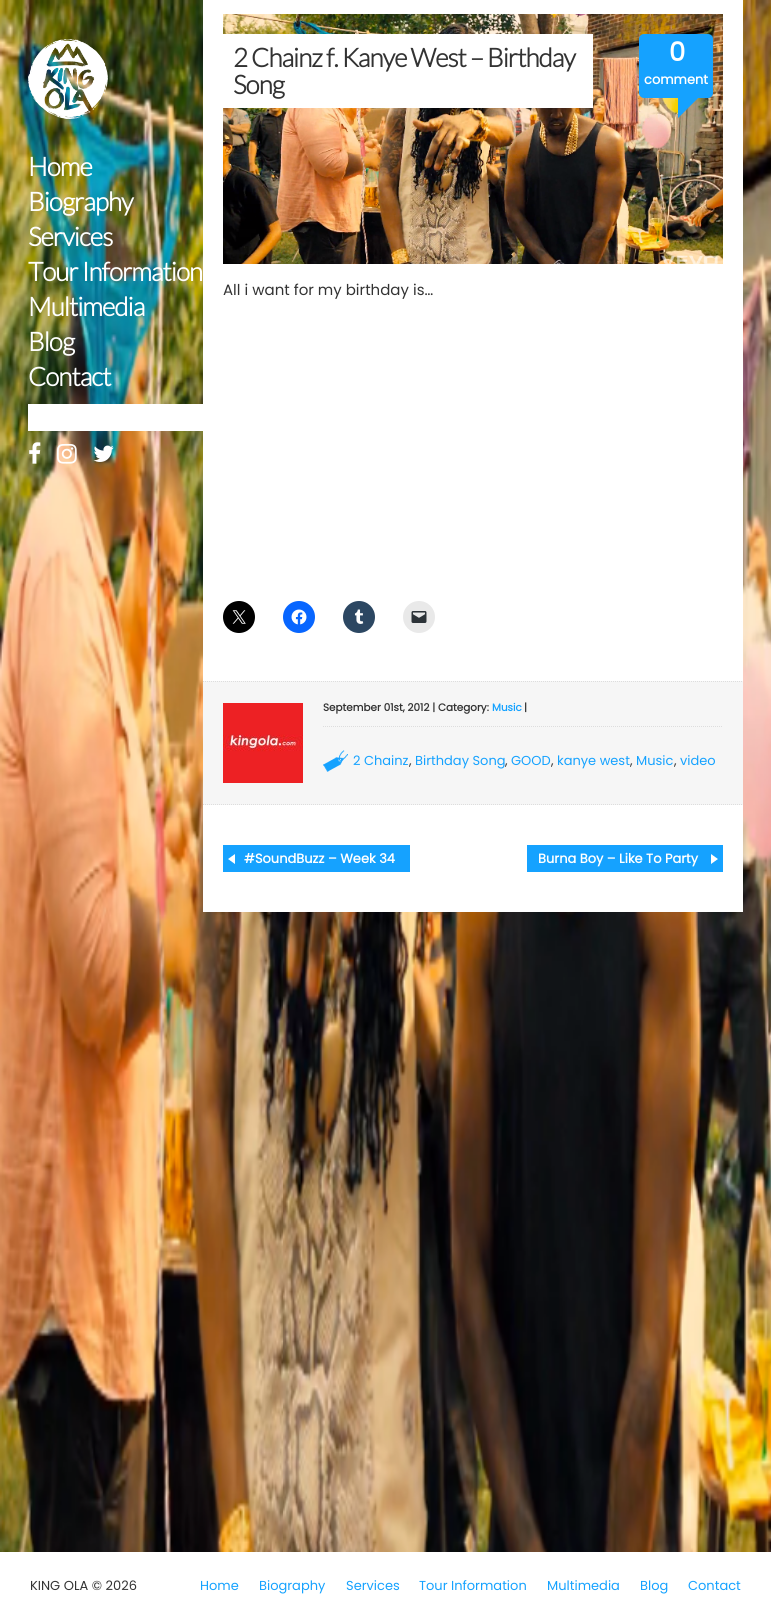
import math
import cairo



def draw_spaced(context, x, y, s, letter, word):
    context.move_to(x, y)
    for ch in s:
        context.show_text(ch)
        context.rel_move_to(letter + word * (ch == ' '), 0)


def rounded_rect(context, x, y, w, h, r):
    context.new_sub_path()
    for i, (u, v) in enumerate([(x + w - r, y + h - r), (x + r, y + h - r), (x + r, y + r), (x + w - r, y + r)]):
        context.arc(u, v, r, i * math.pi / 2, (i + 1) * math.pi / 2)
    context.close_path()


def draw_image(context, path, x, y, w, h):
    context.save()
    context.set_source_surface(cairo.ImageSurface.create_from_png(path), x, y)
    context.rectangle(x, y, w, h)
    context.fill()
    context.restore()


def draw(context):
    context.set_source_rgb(1, 1, 1)
    context.paint()
    draw_image(context, "images/1.png", 0, 0, 771, 1552)
    draw_image(context, "images/2.png", 28, 39, 80, 80)
    context.set_source_rgb(1, 1, 1)
    context.rectangle(203, 0, 540, 912)
    context.fill()
    draw_image(context, "images/3.png", 223, 14, 500, 250)
    context.rectangle(223, 34, 370, 74)
    context.fill()
    draw_image(context, "images/4.png", 678, 98, 20, 20)
    context.set_source_rgb(21 / 255, 162 / 255, 1)
    rounded_rect(context, 639, 34, 74, 64, 5)
    context.fill()
    context.set_source_rgb(0, 0, 0)
    context.arc(239, 617, 16, 0, 2 * math.pi)
    context.fill()
    draw_image(context, "images/5.png", 232, 610, 14, 14)
    context.set_source_rgb(8 / 255, 102 / 255, 1)
    context.arc(299, 617, 16, 0, 2 * math.pi)
    context.fill()
    draw_image(context, "images/6.png", 291, 609, 16, 16)
    context.set_source_rgb(44 / 255, 71 / 255, 98 / 255)
    context.arc(359, 617, 16, 0, 2 * math.pi)
    context.fill()
    draw_image(context, "images/7.png", 354, 609, 10, 15)
    context.set_source_rgb(233 / 255, 233 / 255, 233 / 255)
    context.arc(419, 617, 16, 0, 2 * math.pi)
    context.fill()
    draw_image(context, "images/8.png", 411, 611, 16, 12)
    context.set_source_rgb(246 / 255, 246 / 255, 246 / 255)
    context.rectangle(203, 681, 540, 124)
    context.fill()
    context.new_path()
    context.move_to(203, 681.5)
    context.line_to(743, 681.5)
    context.set_source_rgb(221 / 255, 221 / 255, 221 / 255)
    context.set_line_width(1)
    context.set_dash([1, 1])
    context.stroke()
    context.new_path()
    context.move_to(203, 804.5)
    context.line_to(743, 804.5)
    context.stroke()
    draw_image(context, "images/9.png", 223, 703, 80, 80)
    context.new_path()
    context.move_to(323, 726.5)
    context.line_to(723, 726.5)
    context.stroke()
    draw_image(context, "images/10.png", 323, 750, 25, 22)
    context.set_source_rgb(21 / 255, 162 / 255, 1)
    context.rectangle(223, 845, 187, 27)
    context.fill()
    draw_image(context, "images/11.png", 228, 854, 7, 10)
    context.rectangle(527, 845, 196, 27)
    context.fill()
    draw_image(context, "images/12.png", 711, 854, 7, 10)
    context.set_source_rgb(1, 1, 1)
    context.rectangle(28, 404, 175, 27)
    context.fill()
    draw_image(context, "images/13.png", 29, 442, 12, 22)
    draw_image(context, "images/14.png", 57, 443, 20, 21)
    draw_image(context, "images/15.png", 93, 445, 21, 17)
    context.select_font_face("Lato", cairo.FontSlant.NORMAL, cairo.FontWeight.BOLD)
    context.set_font_size(26)
    context.set_source_rgb(51 / 255, 51 / 255, 51 / 255)
    draw_spaced(context, 233, 67, "2 Chainz f. Kanye West – Birthday", -1, 0)
    draw_spaced(context, 233, 94, "Song", -1, 0)
    context.select_font_face("Poppins", cairo.FontSlant.NORMAL, cairo.FontWeight.BOLD)
    context.set_source_rgb(1, 1, 1)
    draw_spaced(context, 669, 61, "0", -1, 0)
    context.set_font_size(13)
    context.move_to(644, 84)
    context.show_text("comment")
    context.select_font_face("Poppins")
    context.set_font_size(15)
    context.set_source_rgb(51 / 255, 51 / 255, 51 / 255)
    context.move_to(223, 295)
    context.show_text("All i want for my birthday is…")
    context.select_font_face("Poppins", cairo.FontSlant.NORMAL, cairo.FontWeight.BOLD)
    context.set_font_size(10.4)
    context.move_to(323, 711)
    context.show_text("September 01st, 2012 | Category:")
    context.set_source_rgb(21 / 255, 162 / 255, 1)
    context.move_to(492, 711)
    context.show_text("Music")
    context.set_source_rgb(51 / 255, 51 / 255, 51 / 255)
    context.move_to(524, 711)
    context.show_text("|")
    context.select_font_face("Poppins")
    context.set_font_size(13)
    context.set_source_rgb(21 / 255, 162 / 255, 1)
    context.move_to(353, 765)
    context.show_text("2 Chainz")
    context.set_source_rgb(51 / 255, 51 / 255, 51 / 255)
    context.move_to(409, 765)
    context.show_text(",")
    context.set_source_rgb(21 / 255, 162 / 255, 1)
    context.move_to(415, 765)
    context.show_text("Birthday Song")
    context.set_source_rgb(51 / 255, 51 / 255, 51 / 255)
    context.move_to(505, 765)
    context.show_text(",")
    context.set_source_rgb(21 / 255, 162 / 255, 1)
    context.move_to(511, 765)
    context.show_text("GOOD")
    context.set_source_rgb(51 / 255, 51 / 255, 51 / 255)
    context.move_to(551, 765)
    context.show_text(",")
    context.set_source_rgb(21 / 255, 162 / 255, 1)
    context.move_to(557, 765)
    context.show_text("kanye west")
    context.set_source_rgb(51 / 255, 51 / 255, 51 / 255)
    context.move_to(630, 765)
    context.show_text(",")
    context.set_source_rgb(21 / 255, 162 / 255, 1)
    context.move_to(636, 765)
    context.show_text("Music")
    context.set_source_rgb(51 / 255, 51 / 255, 51 / 255)
    context.move_to(674, 765)
    context.show_text(",")
    context.set_source_rgb(21 / 255, 162 / 255, 1)
    context.move_to(680, 765)
    context.show_text("video")
    context.select_font_face("Poppins", cairo.FontSlant.NORMAL, cairo.FontWeight.BOLD)
    context.set_source_rgb(1, 1, 1)
    context.move_to(244, 863)
    context.show_text("#SoundBuzz – Week 34")
    context.move_to(538, 863)
    context.show_text("Burna Boy – Like To Party")
    context.select_font_face("Lato", cairo.FontSlant.NORMAL, cairo.FontWeight.BOLD)
    context.set_font_size(26)
    draw_spaced(context, 28, 176, "Home", -1, 0)
    draw_spaced(context, 28, 211, "Biography", -1, 0)
    draw_spaced(context, 28, 246, "Services", -1, 0)
    draw_spaced(context, 28, 281, "Tour Information", -1, 0)
    draw_spaced(context, 28, 316, "Multimedia", -1, 0)
    draw_spaced(context, 28, 351, "Blog", -1, 0)
    draw_spaced(context, 28, 386, "Contact", -1, 0)
    context.select_font_face("Poppins")
    context.set_font_size(13)
    context.set_source_rgb(51 / 255, 51 / 255, 51 / 255)
    context.move_to(30, 1590)
    context.show_text("KING OLA © 2026")
    context.set_source_rgb(21 / 255, 162 / 255, 1)
    context.move_to(200, 1590)
    context.show_text("Home")
    context.move_to(259, 1590)
    context.show_text("Biography")
    context.move_to(346, 1590)
    context.show_text("Services")
    context.move_to(419, 1590)
    context.show_text("Tour Information")
    context.move_to(547, 1590)
    context.show_text("Multimedia")
    context.move_to(640, 1590)
    context.show_text("Blog")
    context.move_to(688, 1590)
    context.show_text("Contact")


surface = cairo.ImageSurface(cairo.Format.RGB24, 771, 1610)
context = cairo.Context(surface)
options = cairo.FontOptions()
options.set_hint_metrics(cairo.HintMetrics.OFF)
options.set_hint_style(cairo.HintStyle.NONE)
context.set_font_options(options)
context.set_miter_limit(4)
draw(context)
surface.write_to_png("out.png")
